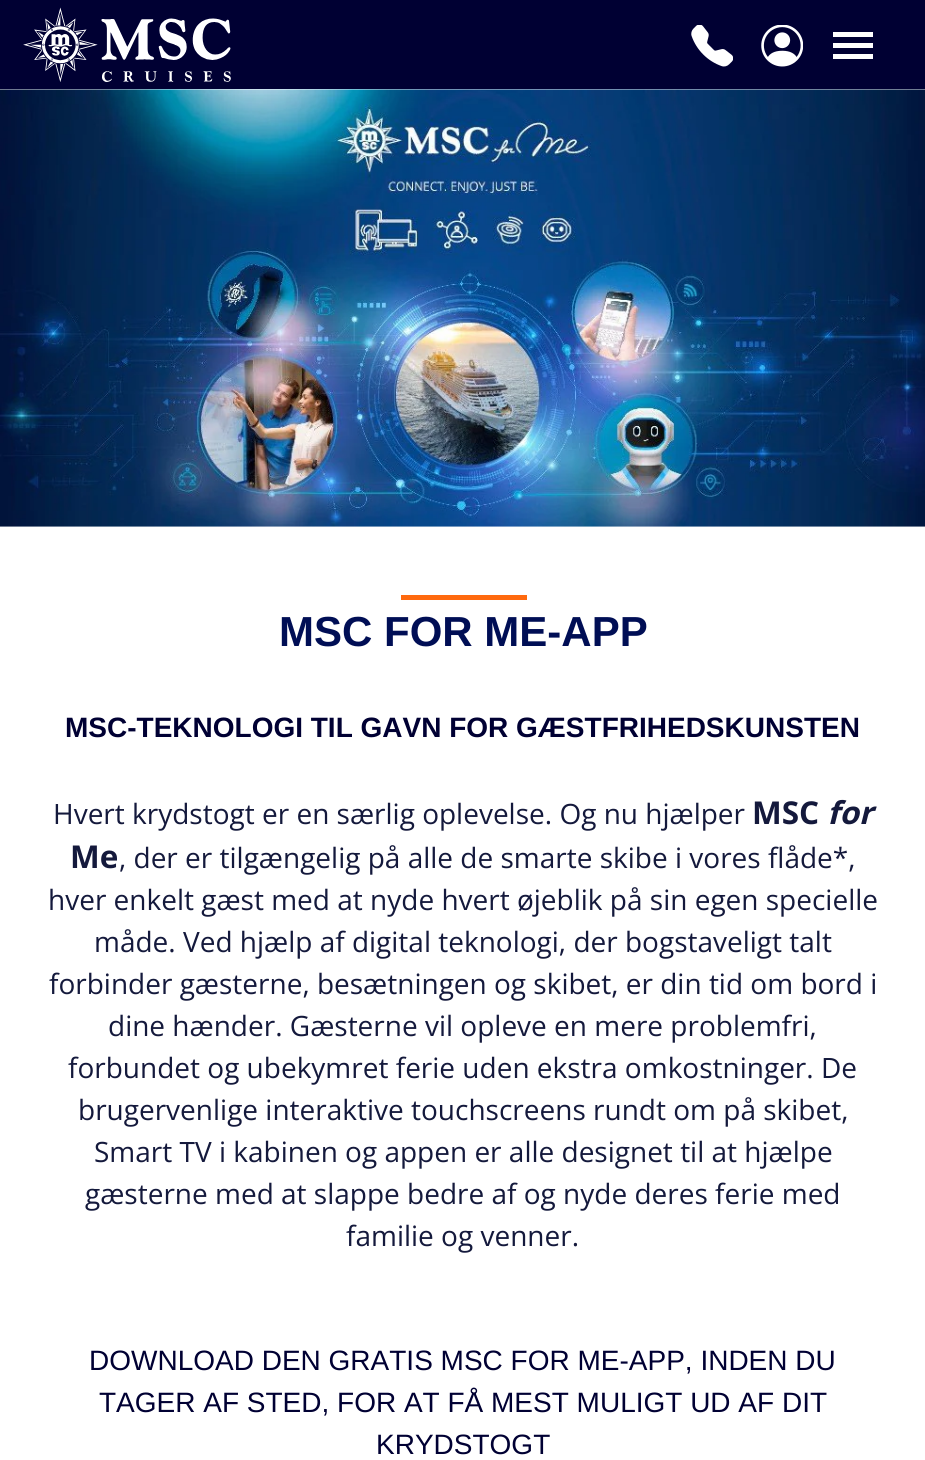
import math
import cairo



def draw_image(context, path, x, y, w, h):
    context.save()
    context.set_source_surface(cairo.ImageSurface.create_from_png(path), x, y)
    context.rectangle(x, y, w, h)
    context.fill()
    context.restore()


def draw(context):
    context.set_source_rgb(1, 1, 1)
    context.paint()
    context.set_source_rgb(0, 0, 51 / 255)
    context.rectangle(0, 0, 925, 89)
    context.fill()
    draw_image(context, "images/1.png", 23, 7, 208, 75)
    draw_image(context, "images/2.png", 691, 25, 42, 42)
    draw_image(context, "images/3.png", 761, 25, 42, 42)
    context.set_source_rgb(1, 1, 1)
    context.new_path()
    context.move_to(833, 59)
    context.line_to(873, 59)
    context.line_to(873, 54)
    context.line_to(833, 54)
    context.close_path()
    context.move_to(833, 48)
    context.line_to(873, 48)
    context.line_to(873, 43)
    context.line_to(833, 43)
    context.close_path()
    context.move_to(833, 32)
    context.line_to(833, 37)
    context.line_to(873, 37)
    context.line_to(873, 32)
    context.close_path()
    context.fill()
    draw_image(context, "images/4.png", 0, 89, 925, 438)
    context.set_source_rgb(1, 105 / 255, 14 / 255)
    context.rectangle(401, 595, 126, 5)
    context.fill()
    context.select_font_face("Liberation Sans", cairo.FontSlant.NORMAL, cairo.FontWeight.BOLD)
    context.set_font_size(42)
    context.set_source_rgb(0, 14 / 255, 85 / 255)
    context.move_to(279, 646)
    context.show_text("MSC FOR ME-APP")
    context.set_font_size(28)
    context.set_source_rgb(0, 0, 51 / 255)
    context.move_to(65, 737)
    context.show_text("MSC-TEKNOLOGI TIL GAVN FOR GÆSTFRIHEDSKUNSTEN")
    context.select_font_face("Open Sans")
    context.set_source_rgb(20 / 255, 25 / 255, 60 / 255)
    context.move_to(53, 824)
    context.show_text("Hvert krydstogt er en særlig oplevelse. Og nu hjælper")
    context.select_font_face("Open Sans", cairo.FontSlant.NORMAL, cairo.FontWeight.BOLD)
    context.set_font_size(31.5)
    context.move_to(752, 824)
    context.show_text("MSC")
    context.select_font_face("Open Sans", cairo.FontSlant.ITALIC, cairo.FontWeight.BOLD)
    context.move_to(827, 824)
    context.show_text("for")
    context.select_font_face("Open Sans", cairo.FontSlant.NORMAL, cairo.FontWeight.BOLD)
    context.move_to(70, 868)
    context.show_text("Me")
    context.select_font_face("Open Sans")
    context.set_font_size(28)
    context.move_to(119, 868)
    context.show_text(", der er tilgængelig på alle de smarte skibe i vores flåde*,")
    context.move_to(48, 910)
    context.show_text("hver enkelt gæst med at nyde hvert øjeblik på sin egen specielle")
    context.move_to(94, 952)
    context.show_text("måde. Ved hjælp af digital teknologi, der bogstaveligt talt")
    context.move_to(49, 994)
    context.show_text("forbinder gæsterne, besætningen og skibet, er din tid om bord i")
    context.move_to(108, 1036)
    context.show_text("dine hænder. Gæsterne vil opleve en mere problemfri,")
    context.move_to(68, 1078)
    context.show_text("forbundet og ubekymret ferie uden ekstra omkostninger. De")
    context.move_to(78, 1120)
    context.show_text("brugervenlige interaktive touchscreens rundt om på skibet,")
    context.move_to(94, 1162)
    context.show_text("Smart TV i kabinen og appen er alle designet til at hjælpe")
    context.move_to(85, 1204)
    context.show_text("gæsterne med at slappe bedre af og nyde deres ferie med")
    context.move_to(346, 1246)
    context.show_text("familie og venner.")
    context.select_font_face("Liberation Sans")
    context.set_source_rgb(0, 0, 51 / 255)
    context.move_to(89, 1370)
    context.show_text("DOWNLOAD DEN GRATIS MSC FOR ME-APP, INDEN DU")
    context.move_to(99, 1412)
    context.show_text("TAGER AF STED, FOR AT FÅ MEST MULIGT UD AF DIT")
    context.move_to(376, 1454)
    context.show_text("KRYDSTOGT")


surface = cairo.ImageSurface(cairo.Format.RGB24, 925, 1460)
context = cairo.Context(surface)
options = cairo.FontOptions()
options.set_hint_metrics(cairo.HintMetrics.OFF)
options.set_hint_style(cairo.HintStyle.NONE)
context.set_font_options(options)
context.set_miter_limit(4)
draw(context)
surface.write_to_png("out.png")
